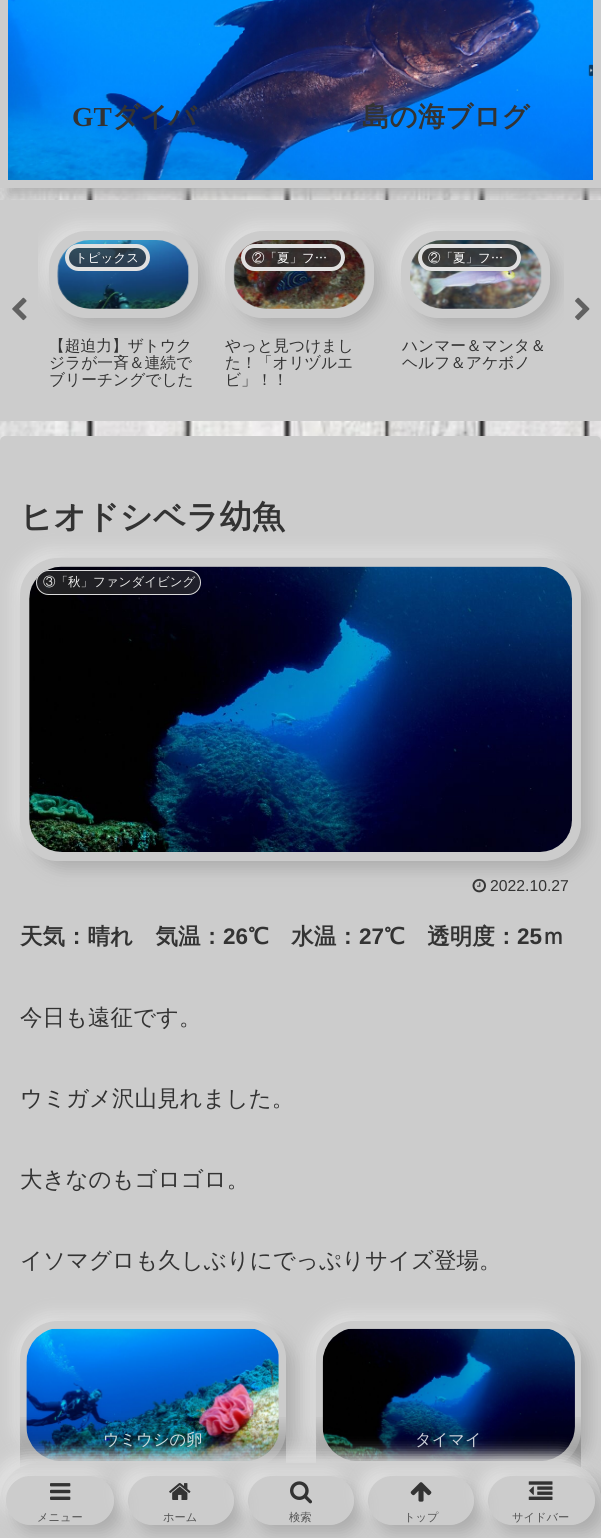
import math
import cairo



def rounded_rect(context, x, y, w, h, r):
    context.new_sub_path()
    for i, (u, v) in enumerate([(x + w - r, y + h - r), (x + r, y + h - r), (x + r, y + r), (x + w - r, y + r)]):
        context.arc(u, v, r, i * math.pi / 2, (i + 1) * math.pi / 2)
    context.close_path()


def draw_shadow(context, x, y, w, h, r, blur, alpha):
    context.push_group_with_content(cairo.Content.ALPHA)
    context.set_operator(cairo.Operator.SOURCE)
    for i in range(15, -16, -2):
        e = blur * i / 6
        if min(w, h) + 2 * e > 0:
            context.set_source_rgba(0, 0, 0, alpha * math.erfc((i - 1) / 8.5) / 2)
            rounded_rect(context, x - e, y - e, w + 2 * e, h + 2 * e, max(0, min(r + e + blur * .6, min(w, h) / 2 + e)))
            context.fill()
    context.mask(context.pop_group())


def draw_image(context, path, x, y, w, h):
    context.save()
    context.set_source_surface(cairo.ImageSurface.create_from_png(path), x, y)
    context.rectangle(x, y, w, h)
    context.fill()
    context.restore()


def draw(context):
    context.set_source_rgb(1, 1, 1)
    context.paint()
    draw_image(context, "images/1.png", 0, 188, 601, 253)
    context.set_source_rgb(224 / 255, 224 / 255, 224 / 255)
    draw_shadow(context, -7, -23, 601, 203, 0, 7.5, 1)
    context.set_source_rgb(173 / 255, 173 / 255, 173 / 255)
    draw_shadow(context, 8, -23, 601, 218, 0, 7.5, 1)
    draw_image(context, "images/2.png", 8, 0, 585, 180)
    context.rectangle(4, -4, 593, 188)
    context.set_source_rgb(204 / 255, 204 / 255, 204 / 255)
    context.set_line_width(8)
    context.stroke()
    context.rectangle(0, 200, 601, 221)
    context.fill()
    draw_image(context, "images/3.png", 12, 297, 15, 24)
    context.save()
    context.rectangle(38, 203, 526, 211)
    context.clip()
    context.set_fill_rule(cairo.FillRule.EVEN_ODD)
    context.new_path()
    context.move_to(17, 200)
    context.line_to(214, 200)
    context.line_to(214, 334)
    context.line_to(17, 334)
    context.close_path()
    context.move_to(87, 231)
    context.line_to(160, 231)
    context.curve_to(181, 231, 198, 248, 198, 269)
    context.line_to(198, 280)
    context.curve_to(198, 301, 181, 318, 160, 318)
    context.line_to(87, 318)
    context.curve_to(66, 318, 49, 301, 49, 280)
    context.line_to(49, 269)
    context.curve_to(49, 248, 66, 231, 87, 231)
    context.close_path()
    context.clip()
    context.set_source_rgb(224 / 255, 224 / 255, 224 / 255)
    draw_shadow(context, 41, 224, 149, 86, 38, 7.5, 1)
    context.restore()
    context.save()
    context.set_fill_rule(cairo.FillRule.EVEN_ODD)
    context.new_path()
    context.move_to(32, 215)
    context.line_to(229, 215)
    context.line_to(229, 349)
    context.line_to(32, 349)
    context.close_path()
    context.move_to(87, 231)
    context.line_to(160, 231)
    context.curve_to(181, 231, 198, 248, 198, 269)
    context.line_to(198, 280)
    context.curve_to(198, 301, 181, 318, 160, 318)
    context.line_to(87, 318)
    context.curve_to(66, 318, 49, 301, 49, 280)
    context.line_to(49, 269)
    context.curve_to(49, 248, 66, 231, 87, 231)
    context.close_path()
    context.clip()
    context.set_source_rgb(173 / 255, 173 / 255, 173 / 255)
    draw_shadow(context, 56, 239, 149, 86, 38, 7.5, 1)
    context.restore()
    draw_image(context, "images/4.png", 57, 240, 133, 69)
    context.set_source_rgba(51 / 255, 51 / 255, 51 / 255, 0.7)
    rounded_rect(context, 67, 246, 81, 23, 11.5)
    context.fill_preserve()
    context.set_source_rgb(224 / 255, 224 / 255, 224 / 255)
    context.set_line_width(4)
    context.stroke()
    context.save()
    context.set_fill_rule(cairo.FillRule.EVEN_ODD)
    context.new_path()
    context.move_to(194, 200)
    context.line_to(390, 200)
    context.line_to(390, 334)
    context.line_to(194, 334)
    context.close_path()
    context.move_to(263, 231)
    context.line_to(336, 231)
    context.curve_to(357, 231, 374, 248, 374, 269)
    context.line_to(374, 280)
    context.curve_to(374, 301, 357, 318, 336, 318)
    context.line_to(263, 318)
    context.curve_to(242, 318, 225, 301, 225, 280)
    context.line_to(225, 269)
    context.curve_to(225, 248, 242, 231, 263, 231)
    context.close_path()
    context.clip()
    context.set_source_rgb(224 / 255, 224 / 255, 224 / 255)
    draw_shadow(context, 218, 224, 148, 86, 38, 7.5, 1)
    context.restore()
    context.save()
    context.set_fill_rule(cairo.FillRule.EVEN_ODD)
    context.new_path()
    context.move_to(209, 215)
    context.line_to(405, 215)
    context.line_to(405, 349)
    context.line_to(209, 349)
    context.close_path()
    context.move_to(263, 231)
    context.line_to(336, 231)
    context.curve_to(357, 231, 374, 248, 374, 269)
    context.line_to(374, 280)
    context.curve_to(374, 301, 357, 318, 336, 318)
    context.line_to(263, 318)
    context.curve_to(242, 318, 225, 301, 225, 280)
    context.line_to(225, 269)
    context.curve_to(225, 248, 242, 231, 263, 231)
    context.close_path()
    context.clip()
    context.set_source_rgb(173 / 255, 173 / 255, 173 / 255)
    draw_shadow(context, 233, 239, 148, 86, 38, 7.5, 1)
    context.restore()
    draw_image(context, "images/5.png", 233, 240, 133, 69)
    context.set_source_rgba(51 / 255, 51 / 255, 51 / 255, 0.7)
    rounded_rect(context, 243, 246, 100, 23, 11.5)
    context.fill_preserve()
    context.set_source_rgb(224 / 255, 224 / 255, 224 / 255)
    context.stroke()
    context.save()
    context.set_fill_rule(cairo.FillRule.EVEN_ODD)
    context.new_path()
    context.move_to(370, 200)
    context.line_to(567, 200)
    context.line_to(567, 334)
    context.line_to(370, 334)
    context.close_path()
    context.move_to(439, 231)
    context.line_to(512, 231)
    context.curve_to(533, 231, 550, 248, 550, 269)
    context.line_to(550, 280)
    context.curve_to(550, 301, 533, 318, 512, 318)
    context.line_to(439, 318)
    context.curve_to(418, 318, 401, 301, 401, 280)
    context.line_to(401, 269)
    context.curve_to(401, 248, 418, 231, 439, 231)
    context.close_path()
    context.clip()
    context.set_source_rgb(224 / 255, 224 / 255, 224 / 255)
    draw_shadow(context, 394, 224, 149, 86, 38, 7.5, 1)
    context.restore()
    context.save()
    context.rectangle(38, 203, 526, 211)
    context.clip()
    context.set_fill_rule(cairo.FillRule.EVEN_ODD)
    context.new_path()
    context.move_to(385, 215)
    context.line_to(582, 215)
    context.line_to(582, 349)
    context.line_to(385, 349)
    context.close_path()
    context.move_to(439, 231)
    context.line_to(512, 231)
    context.curve_to(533, 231, 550, 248, 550, 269)
    context.line_to(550, 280)
    context.curve_to(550, 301, 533, 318, 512, 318)
    context.line_to(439, 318)
    context.curve_to(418, 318, 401, 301, 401, 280)
    context.line_to(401, 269)
    context.curve_to(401, 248, 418, 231, 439, 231)
    context.close_path()
    context.clip()
    context.set_source_rgb(173 / 255, 173 / 255, 173 / 255)
    draw_shadow(context, 409, 239, 149, 86, 38, 7.5, 1)
    context.restore()
    draw_image(context, "images/6.png", 410, 240, 132, 69)
    context.set_source_rgba(51 / 255, 51 / 255, 51 / 255, 0.7)
    rounded_rect(context, 420, 246, 99, 23, 11.5)
    context.fill_preserve()
    context.set_source_rgb(224 / 255, 224 / 255, 224 / 255)
    context.stroke()
    draw_image(context, "images/7.png", 575, 297, 15, 24)
    context.set_source_rgb(204 / 255, 204 / 255, 204 / 255)
    rounded_rect(context, 0, 436, 601, 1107, 5)
    context.fill()
    context.save()
    context.set_fill_rule(cairo.FillRule.EVEN_ODD)
    context.new_path()
    context.move_to(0, 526)
    context.line_to(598, 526)
    context.line_to(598, 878)
    context.line_to(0, 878)
    context.close_path()
    context.move_to(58, 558)
    context.line_to(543, 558)
    context.curve_to(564, 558, 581, 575, 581, 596)
    context.line_to(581, 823)
    context.curve_to(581, 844, 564, 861, 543, 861)
    context.line_to(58, 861)
    context.curve_to(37, 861, 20, 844, 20, 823)
    context.line_to(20, 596)
    context.curve_to(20, 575, 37, 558, 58, 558)
    context.close_path()
    context.clip()
    context.set_source_rgb(224 / 255, 224 / 255, 224 / 255)
    draw_shadow(context, 13, 550, 561, 304, 38, 7.5, 1)
    context.restore()
    draw_image(context, "images/9.png", 472, 878, 14, 15)
    context.save()
    context.set_fill_rule(cairo.FillRule.EVEN_ODD)
    context.new_path()
    context.move_to(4, 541)
    context.line_to(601, 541)
    context.line_to(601, 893)
    context.line_to(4, 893)
    context.close_path()
    context.move_to(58, 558)
    context.line_to(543, 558)
    context.curve_to(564, 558, 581, 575, 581, 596)
    context.line_to(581, 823)
    context.curve_to(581, 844, 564, 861, 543, 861)
    context.line_to(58, 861)
    context.curve_to(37, 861, 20, 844, 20, 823)
    context.line_to(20, 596)
    context.curve_to(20, 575, 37, 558, 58, 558)
    context.close_path()
    context.clip()
    context.set_source_rgb(173 / 255, 173 / 255, 173 / 255)
    draw_shadow(context, 28, 565, 561, 304, 38, 7.5, 1)
    context.restore()
    draw_image(context, "images/8.png", 29, 566, 543, 286)
    context.set_source_rgba(51 / 255, 51 / 255, 51 / 255, 0.63)
    rounded_rect(context, 36, 570, 165, 25, 12.5)
    context.fill()
    rounded_rect(context, 36.5, 570.5, 164, 24, 12)
    context.set_source_rgba(238 / 255, 238 / 255, 238 / 255, 0.9)
    context.set_line_width(1)
    context.stroke()
    context.save()
    context.set_fill_rule(cairo.FillRule.EVEN_ODD)
    context.new_path()
    context.move_to(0, 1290)
    context.line_to(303, 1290)
    context.line_to(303, 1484)
    context.line_to(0, 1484)
    context.close_path()
    context.move_to(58, 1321)
    context.line_to(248, 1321)
    context.curve_to(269, 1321, 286, 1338, 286, 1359)
    context.line_to(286, 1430)
    context.curve_to(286, 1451, 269, 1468, 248, 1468)
    context.line_to(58, 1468)
    context.curve_to(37, 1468, 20, 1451, 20, 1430)
    context.line_to(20, 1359)
    context.curve_to(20, 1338, 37, 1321, 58, 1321)
    context.close_path()
    context.clip()
    context.set_source_rgb(224 / 255, 224 / 255, 224 / 255)
    draw_shadow(context, 13, 1314, 266, 146, 38, 7.5, 1)
    context.restore()
    context.save()
    context.set_fill_rule(cairo.FillRule.EVEN_ODD)
    context.new_path()
    context.move_to(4, 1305)
    context.line_to(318, 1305)
    context.line_to(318, 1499)
    context.line_to(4, 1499)
    context.close_path()
    context.move_to(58, 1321)
    context.line_to(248, 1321)
    context.curve_to(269, 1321, 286, 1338, 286, 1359)
    context.line_to(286, 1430)
    context.curve_to(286, 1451, 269, 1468, 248, 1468)
    context.line_to(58, 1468)
    context.curve_to(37, 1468, 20, 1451, 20, 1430)
    context.line_to(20, 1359)
    context.curve_to(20, 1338, 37, 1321, 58, 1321)
    context.close_path()
    context.clip()
    context.set_source_rgb(173 / 255, 173 / 255, 173 / 255)
    draw_shadow(context, 28, 1329, 266, 146, 38, 7.5, 1)
    context.restore()
    draw_image(context, "images/10.png", 26, 1328, 253, 133)
    gradient = cairo.LinearGradient(153, 1468, 153, 1413)
    gradient.add_color_stop_rgba(0, 0, 0, 0, 0.32)
    gradient.add_color_stop_rgba(1, 0, 0, 0, 0)
    context.set_source(gradient)
    context.rectangle(20, 1417, 266, 51)
    context.fill()
    context.save()
    context.set_fill_rule(cairo.FillRule.EVEN_ODD)
    context.new_path()
    context.move_to(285, 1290)
    context.line_to(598, 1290)
    context.line_to(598, 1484)
    context.line_to(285, 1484)
    context.close_path()
    context.move_to(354, 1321)
    context.line_to(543, 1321)
    context.curve_to(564, 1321, 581, 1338, 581, 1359)
    context.line_to(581, 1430)
    context.curve_to(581, 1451, 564, 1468, 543, 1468)
    context.line_to(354, 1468)
    context.curve_to(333, 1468, 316, 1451, 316, 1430)
    context.line_to(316, 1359)
    context.curve_to(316, 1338, 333, 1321, 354, 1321)
    context.close_path()
    context.clip()
    context.set_source_rgb(224 / 255, 224 / 255, 224 / 255)
    draw_shadow(context, 309, 1314, 265, 146, 38, 7.5, 1)
    context.restore()
    context.save()
    context.set_fill_rule(cairo.FillRule.EVEN_ODD)
    context.new_path()
    context.move_to(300, 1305)
    context.line_to(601, 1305)
    context.line_to(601, 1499)
    context.line_to(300, 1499)
    context.close_path()
    context.move_to(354, 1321)
    context.line_to(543, 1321)
    context.curve_to(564, 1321, 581, 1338, 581, 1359)
    context.line_to(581, 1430)
    context.curve_to(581, 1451, 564, 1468, 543, 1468)
    context.line_to(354, 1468)
    context.curve_to(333, 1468, 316, 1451, 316, 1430)
    context.line_to(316, 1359)
    context.curve_to(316, 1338, 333, 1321, 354, 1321)
    context.close_path()
    context.clip()
    context.set_source_rgb(173 / 255, 173 / 255, 173 / 255)
    draw_shadow(context, 324, 1329, 265, 146, 38, 7.5, 1)
    context.restore()
    draw_image(context, "images/11.png", 322, 1328, 253, 133)
    gradient = cairo.LinearGradient(449, 1468, 449, 1413)
    gradient.add_color_stop_rgba(0, 0, 0, 0, 0.32)
    gradient.add_color_stop_rgba(1, 0, 0, 0, 0)
    context.set_source(gradient)
    context.rectangle(316, 1417, 265, 51)
    context.fill()
    context.set_source_rgb(224 / 255, 224 / 255, 224 / 255)
    draw_shadow(context, -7, 1455, 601, 76, 38, 7.5, 1)
    context.save()
    context.set_fill_rule(cairo.FillRule.EVEN_ODD)
    context.new_path()
    context.move_to(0, 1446)
    context.line_to(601, 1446)
    context.line_to(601, 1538)
    context.line_to(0, 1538)
    context.close_path()
    context.move_to(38, 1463)
    context.line_to(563, 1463)
    context.curve_to(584, 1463, 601, 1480, 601, 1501)
    context.line_to(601, 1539)
    context.line_to(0, 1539)
    context.line_to(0, 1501)
    context.curve_to(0, 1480, 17, 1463, 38, 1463)
    context.close_path()
    context.clip()
    context.set_source_rgb(173 / 255, 173 / 255, 173 / 255)
    draw_shadow(context, 8, 1470, 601, 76, 38, 7.5, 1)
    context.restore()
    context.set_source_rgb(204 / 255, 204 / 255, 204 / 255)
    context.new_path()
    context.move_to(38, 1463)
    context.line_to(563, 1463)
    context.curve_to(584, 1463, 601, 1480, 601, 1501)
    context.line_to(601, 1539)
    context.line_to(0, 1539)
    context.line_to(0, 1501)
    context.curve_to(0, 1480, 17, 1463, 38, 1463)
    context.close_path()
    context.fill()
    context.save()
    context.set_fill_rule(cairo.FillRule.EVEN_ODD)
    context.new_path()
    context.move_to(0, 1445)
    context.line_to(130, 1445)
    context.line_to(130, 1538)
    context.line_to(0, 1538)
    context.close_path()
    context.move_to(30.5, 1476)
    context.line_to(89.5, 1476)
    context.curve_to(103, 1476, 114, 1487, 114, 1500.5)
    context.curve_to(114, 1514, 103, 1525, 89.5, 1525)
    context.line_to(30.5, 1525)
    context.curve_to(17, 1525, 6, 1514, 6, 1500.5)
    context.curve_to(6, 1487, 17, 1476, 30.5, 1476)
    context.close_path()
    context.clip()
    context.set_source_rgb(224 / 255, 224 / 255, 224 / 255)
    draw_shadow(context, -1, 1469, 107, 49, 24.5, 7.5, 1)
    context.restore()
    context.save()
    context.set_fill_rule(cairo.FillRule.EVEN_ODD)
    context.new_path()
    context.move_to(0, 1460)
    context.line_to(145, 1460)
    context.line_to(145, 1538)
    context.line_to(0, 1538)
    context.close_path()
    context.move_to(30.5, 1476)
    context.line_to(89.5, 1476)
    context.curve_to(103, 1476, 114, 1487, 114, 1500.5)
    context.curve_to(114, 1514, 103, 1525, 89.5, 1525)
    context.line_to(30.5, 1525)
    context.curve_to(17, 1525, 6, 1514, 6, 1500.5)
    context.curve_to(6, 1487, 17, 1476, 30.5, 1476)
    context.close_path()
    context.clip()
    context.set_source_rgb(173 / 255, 173 / 255, 173 / 255)
    draw_shadow(context, 14, 1484, 107, 49, 24.5, 7.5, 1)
    context.restore()
    draw_image(context, "images/12.png", 50, 1483, 21, 17)
    context.save()
    context.set_fill_rule(cairo.FillRule.EVEN_ODD)
    context.new_path()
    context.move_to(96, 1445)
    context.line_to(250, 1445)
    context.line_to(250, 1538)
    context.line_to(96, 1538)
    context.close_path()
    context.move_to(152.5, 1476)
    context.line_to(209.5, 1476)
    context.curve_to(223, 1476, 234, 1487, 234, 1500.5)
    context.curve_to(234, 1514, 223, 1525, 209.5, 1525)
    context.line_to(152.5, 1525)
    context.curve_to(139, 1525, 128, 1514, 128, 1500.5)
    context.curve_to(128, 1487, 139, 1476, 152.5, 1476)
    context.close_path()
    context.clip()
    context.set_source_rgb(224 / 255, 224 / 255, 224 / 255)
    draw_shadow(context, 120, 1469, 106, 49, 24.5, 7.5, 1)
    context.restore()
    context.save()
    context.set_fill_rule(cairo.FillRule.EVEN_ODD)
    context.new_path()
    context.move_to(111, 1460)
    context.line_to(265, 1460)
    context.line_to(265, 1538)
    context.line_to(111, 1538)
    context.close_path()
    context.move_to(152.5, 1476)
    context.line_to(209.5, 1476)
    context.curve_to(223, 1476, 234, 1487, 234, 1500.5)
    context.curve_to(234, 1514, 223, 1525, 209.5, 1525)
    context.line_to(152.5, 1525)
    context.curve_to(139, 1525, 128, 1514, 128, 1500.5)
    context.curve_to(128, 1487, 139, 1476, 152.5, 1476)
    context.close_path()
    context.clip()
    context.set_source_rgb(173 / 255, 173 / 255, 173 / 255)
    draw_shadow(context, 135, 1484, 106, 49, 24.5, 7.5, 1)
    context.restore()
    draw_image(context, "images/13.png", 169, 1483, 22, 17)
    context.save()
    context.set_fill_rule(cairo.FillRule.EVEN_ODD)
    context.new_path()
    context.move_to(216, 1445)
    context.line_to(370, 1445)
    context.line_to(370, 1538)
    context.line_to(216, 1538)
    context.close_path()
    context.move_to(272.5, 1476)
    context.line_to(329.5, 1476)
    context.curve_to(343, 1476, 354, 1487, 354, 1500.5)
    context.curve_to(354, 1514, 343, 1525, 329.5, 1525)
    context.line_to(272.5, 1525)
    context.curve_to(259, 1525, 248, 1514, 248, 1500.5)
    context.curve_to(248, 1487, 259, 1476, 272.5, 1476)
    context.close_path()
    context.clip()
    context.set_source_rgb(224 / 255, 224 / 255, 224 / 255)
    draw_shadow(context, 240, 1469, 106, 49, 24.5, 7.5, 1)
    context.restore()
    context.save()
    context.set_fill_rule(cairo.FillRule.EVEN_ODD)
    context.new_path()
    context.move_to(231, 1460)
    context.line_to(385, 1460)
    context.line_to(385, 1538)
    context.line_to(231, 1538)
    context.close_path()
    context.move_to(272.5, 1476)
    context.line_to(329.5, 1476)
    context.curve_to(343, 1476, 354, 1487, 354, 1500.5)
    context.curve_to(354, 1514, 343, 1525, 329.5, 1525)
    context.line_to(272.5, 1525)
    context.curve_to(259, 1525, 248, 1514, 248, 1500.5)
    context.curve_to(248, 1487, 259, 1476, 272.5, 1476)
    context.close_path()
    context.clip()
    context.set_source_rgb(173 / 255, 173 / 255, 173 / 255)
    draw_shadow(context, 255, 1484, 106, 49, 24.5, 7.5, 1)
    context.restore()
    draw_image(context, "images/14.png", 290, 1481, 22, 23)
    context.save()
    context.set_fill_rule(cairo.FillRule.EVEN_ODD)
    context.new_path()
    context.move_to(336, 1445)
    context.line_to(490, 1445)
    context.line_to(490, 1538)
    context.line_to(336, 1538)
    context.close_path()
    context.move_to(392.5, 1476)
    context.line_to(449.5, 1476)
    context.curve_to(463, 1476, 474, 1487, 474, 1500.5)
    context.curve_to(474, 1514, 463, 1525, 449.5, 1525)
    context.line_to(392.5, 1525)
    context.curve_to(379, 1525, 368, 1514, 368, 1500.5)
    context.curve_to(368, 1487, 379, 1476, 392.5, 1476)
    context.close_path()
    context.clip()
    context.set_source_rgb(224 / 255, 224 / 255, 224 / 255)
    draw_shadow(context, 360, 1469, 106, 49, 24.5, 7.5, 1)
    context.restore()
    context.save()
    context.set_fill_rule(cairo.FillRule.EVEN_ODD)
    context.new_path()
    context.move_to(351, 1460)
    context.line_to(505, 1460)
    context.line_to(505, 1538)
    context.line_to(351, 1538)
    context.close_path()
    context.move_to(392.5, 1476)
    context.line_to(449.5, 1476)
    context.curve_to(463, 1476, 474, 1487, 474, 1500.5)
    context.curve_to(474, 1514, 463, 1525, 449.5, 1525)
    context.line_to(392.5, 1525)
    context.curve_to(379, 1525, 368, 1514, 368, 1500.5)
    context.curve_to(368, 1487, 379, 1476, 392.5, 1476)
    context.close_path()
    context.clip()
    context.set_source_rgb(173 / 255, 173 / 255, 173 / 255)
    draw_shadow(context, 375, 1484, 106, 49, 24.5, 7.5, 1)
    context.restore()
    draw_image(context, "images/15.png", 410, 1482, 22, 20)
    context.save()
    context.set_fill_rule(cairo.FillRule.EVEN_ODD)
    context.new_path()
    context.move_to(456, 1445)
    context.line_to(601, 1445)
    context.line_to(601, 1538)
    context.line_to(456, 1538)
    context.close_path()
    context.move_to(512.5, 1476)
    context.line_to(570.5, 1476)
    context.curve_to(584, 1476, 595, 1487, 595, 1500.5)
    context.curve_to(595, 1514, 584, 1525, 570.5, 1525)
    context.line_to(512.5, 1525)
    context.curve_to(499, 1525, 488, 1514, 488, 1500.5)
    context.curve_to(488, 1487, 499, 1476, 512.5, 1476)
    context.close_path()
    context.clip()
    context.set_source_rgb(224 / 255, 224 / 255, 224 / 255)
    draw_shadow(context, 480, 1469, 108, 49, 24.5, 7.5, 1)
    context.restore()
    context.save()
    context.set_fill_rule(cairo.FillRule.EVEN_ODD)
    context.new_path()
    context.move_to(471, 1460)
    context.line_to(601, 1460)
    context.line_to(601, 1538)
    context.line_to(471, 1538)
    context.close_path()
    context.move_to(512.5, 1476)
    context.line_to(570.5, 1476)
    context.curve_to(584, 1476, 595, 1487, 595, 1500.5)
    context.curve_to(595, 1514, 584, 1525, 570.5, 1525)
    context.line_to(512.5, 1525)
    context.curve_to(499, 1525, 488, 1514, 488, 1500.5)
    context.curve_to(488, 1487, 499, 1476, 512.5, 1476)
    context.close_path()
    context.clip()
    context.set_source_rgb(173 / 255, 173 / 255, 173 / 255)
    draw_shadow(context, 495, 1484, 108, 49, 24.5, 7.5, 1)
    context.restore()
    draw_image(context, "images/16.png", 528, 1481, 25, 19)
    context.select_font_face("Liberation Serif", cairo.FontSlant.NORMAL, cairo.FontWeight.BOLD)
    context.set_font_size(27.5)
    context.set_source_rgb(51 / 255, 51 / 255, 51 / 255)
    context.move_to(72, 126)
    context.show_text("GT")
    context.select_font_face("WenQuanYi Zen Hei", cairo.FontSlant.NORMAL, cairo.FontWeight.BOLD)
    context.move_to(112, 126)
    context.show_text("ダイバ")
    context.move_to(362, 126)
    context.show_text("島の海ブログ")
    context.select_font_face("WenQuanYi Zen Hei Medium")
    context.set_font_size(12.5)
    context.set_source_rgb(1, 1, 1)
    context.move_to(75, 262)
    context.show_text("トピックス")
    context.save()
    context.rectangle(49, 338, 149, 51)
    context.clip()
    context.set_font_size(15.75)
    context.set_source_rgb(51 / 255, 51 / 255, 51 / 255)
    context.move_to(49, 351)
    context.show_text("【超迫力】ザトウク")
    context.restore()
    context.set_font_size(15.75)
    context.set_source_rgb(51 / 255, 51 / 255, 51 / 255)
    context.move_to(49, 368)
    context.show_text("ジラが一斉＆連続で")
    context.move_to(49, 385)
    context.show_text("ブリーチングでした")
    context.set_font_size(12.5)
    context.set_source_rgb(1, 1, 1)
    context.move_to(252, 262)
    context.show_text("②「夏」フ…")
    context.set_font_size(15.75)
    context.set_source_rgb(51 / 255, 51 / 255, 51 / 255)
    context.move_to(225, 351)
    context.show_text("やっと見つけまし")
    context.move_to(225, 368)
    context.show_text("た！「オリヅルエ")
    context.move_to(225, 385)
    context.show_text("ビ」！！")
    context.set_font_size(12.5)
    context.set_source_rgb(1, 1, 1)
    context.move_to(428, 262)
    context.show_text("②「夏」フ…")
    context.set_font_size(15.75)
    context.set_source_rgb(51 / 255, 51 / 255, 51 / 255)
    context.move_to(402, 351)
    context.show_text("ハンマー＆マンタ＆")
    context.move_to(402, 368)
    context.show_text("ヘルフ＆アケボノ")
    context.select_font_face("WenQuanYi Zen Hei", cairo.FontSlant.NORMAL, cairo.FontWeight.BOLD)
    context.set_font_size(32.5)
    context.move_to(20, 528)
    context.show_text("ヒオドシベラ幼魚")
    context.select_font_face("WenQuanYi Zen Hei Medium")
    context.set_font_size(12.5)
    context.set_source_rgb(233 / 255, 233 / 255, 233 / 255)
    context.move_to(43, 586)
    context.show_text("③「秋」ファンダイビング")
    context.select_font_face("Liberation Sans")
    context.set_font_size(15.75)
    context.set_source_rgb(51 / 255, 51 / 255, 51 / 255)
    context.move_to(490, 891)
    context.show_text("2022.10.27")
    context.select_font_face("WenQuanYi Zen Hei", cairo.FontSlant.NORMAL, cairo.FontWeight.BOLD)
    context.set_font_size(22.5)
    context.move_to(20, 944)
    context.show_text("天気：晴れ　気温：")
    context.select_font_face("Liberation Sans", cairo.FontSlant.NORMAL, cairo.FontWeight.BOLD)
    context.move_to(223, 944)
    context.show_text("26")
    context.select_font_face("WenQuanYi Zen Hei", cairo.FontSlant.NORMAL, cairo.FontWeight.BOLD)
    context.move_to(248, 944)
    context.show_text("℃　水温：")
    context.select_font_face("Liberation Sans", cairo.FontSlant.NORMAL, cairo.FontWeight.BOLD)
    context.move_to(359, 944)
    context.show_text("27")
    context.select_font_face("WenQuanYi Zen Hei", cairo.FontSlant.NORMAL, cairo.FontWeight.BOLD)
    context.move_to(384, 944)
    context.show_text("℃　透明度：")
    context.select_font_face("Liberation Sans", cairo.FontSlant.NORMAL, cairo.FontWeight.BOLD)
    context.move_to(517, 944)
    context.show_text("25")
    context.select_font_face("WenQuanYi Zen Hei", cairo.FontSlant.NORMAL, cairo.FontWeight.BOLD)
    context.move_to(542, 944)
    context.show_text("ｍ")
    context.select_font_face("WenQuanYi Zen Hei Medium")
    context.move_to(20, 1025)
    context.show_text("今日も遠征です。")
    context.move_to(20, 1106)
    context.show_text("ウミガメ沢山見れました。")
    context.move_to(20, 1187)
    context.show_text("大きなのもゴロゴロ。")
    context.move_to(20, 1268)
    context.show_text("イソマグロも久しぶりにでっぷりサイズ登場。")
    context.set_font_size(16.25)
    context.set_source_rgb(205 / 255, 220 / 255, 223 / 255)
    context.move_to(103, 1445)
    context.show_text("ウミウシの卵")
    context.set_source_rgb(204 / 255, 209 / 255, 217 / 255)
    context.move_to(415, 1445)
    context.show_text("タイマイ")
    context.set_font_size(11.25)
    context.set_source_rgb(82 / 255, 82 / 255, 82 / 255)
    context.move_to(37, 1521)
    context.show_text("メニュー")
    context.move_to(163, 1521)
    context.show_text("ホーム")
    context.move_to(289, 1521)
    context.show_text("検索")
    context.move_to(404, 1521)
    context.show_text("トップ")
    context.move_to(512, 1521)
    context.show_text("サイドバー")


surface = cairo.ImageSurface(cairo.Format.RGB24, 601, 1538)
context = cairo.Context(surface)
options = cairo.FontOptions()
options.set_hint_metrics(cairo.HintMetrics.OFF)
options.set_hint_style(cairo.HintStyle.NONE)
context.set_font_options(options)
context.set_miter_limit(4)
draw(context)
surface.write_to_png("out.png")
